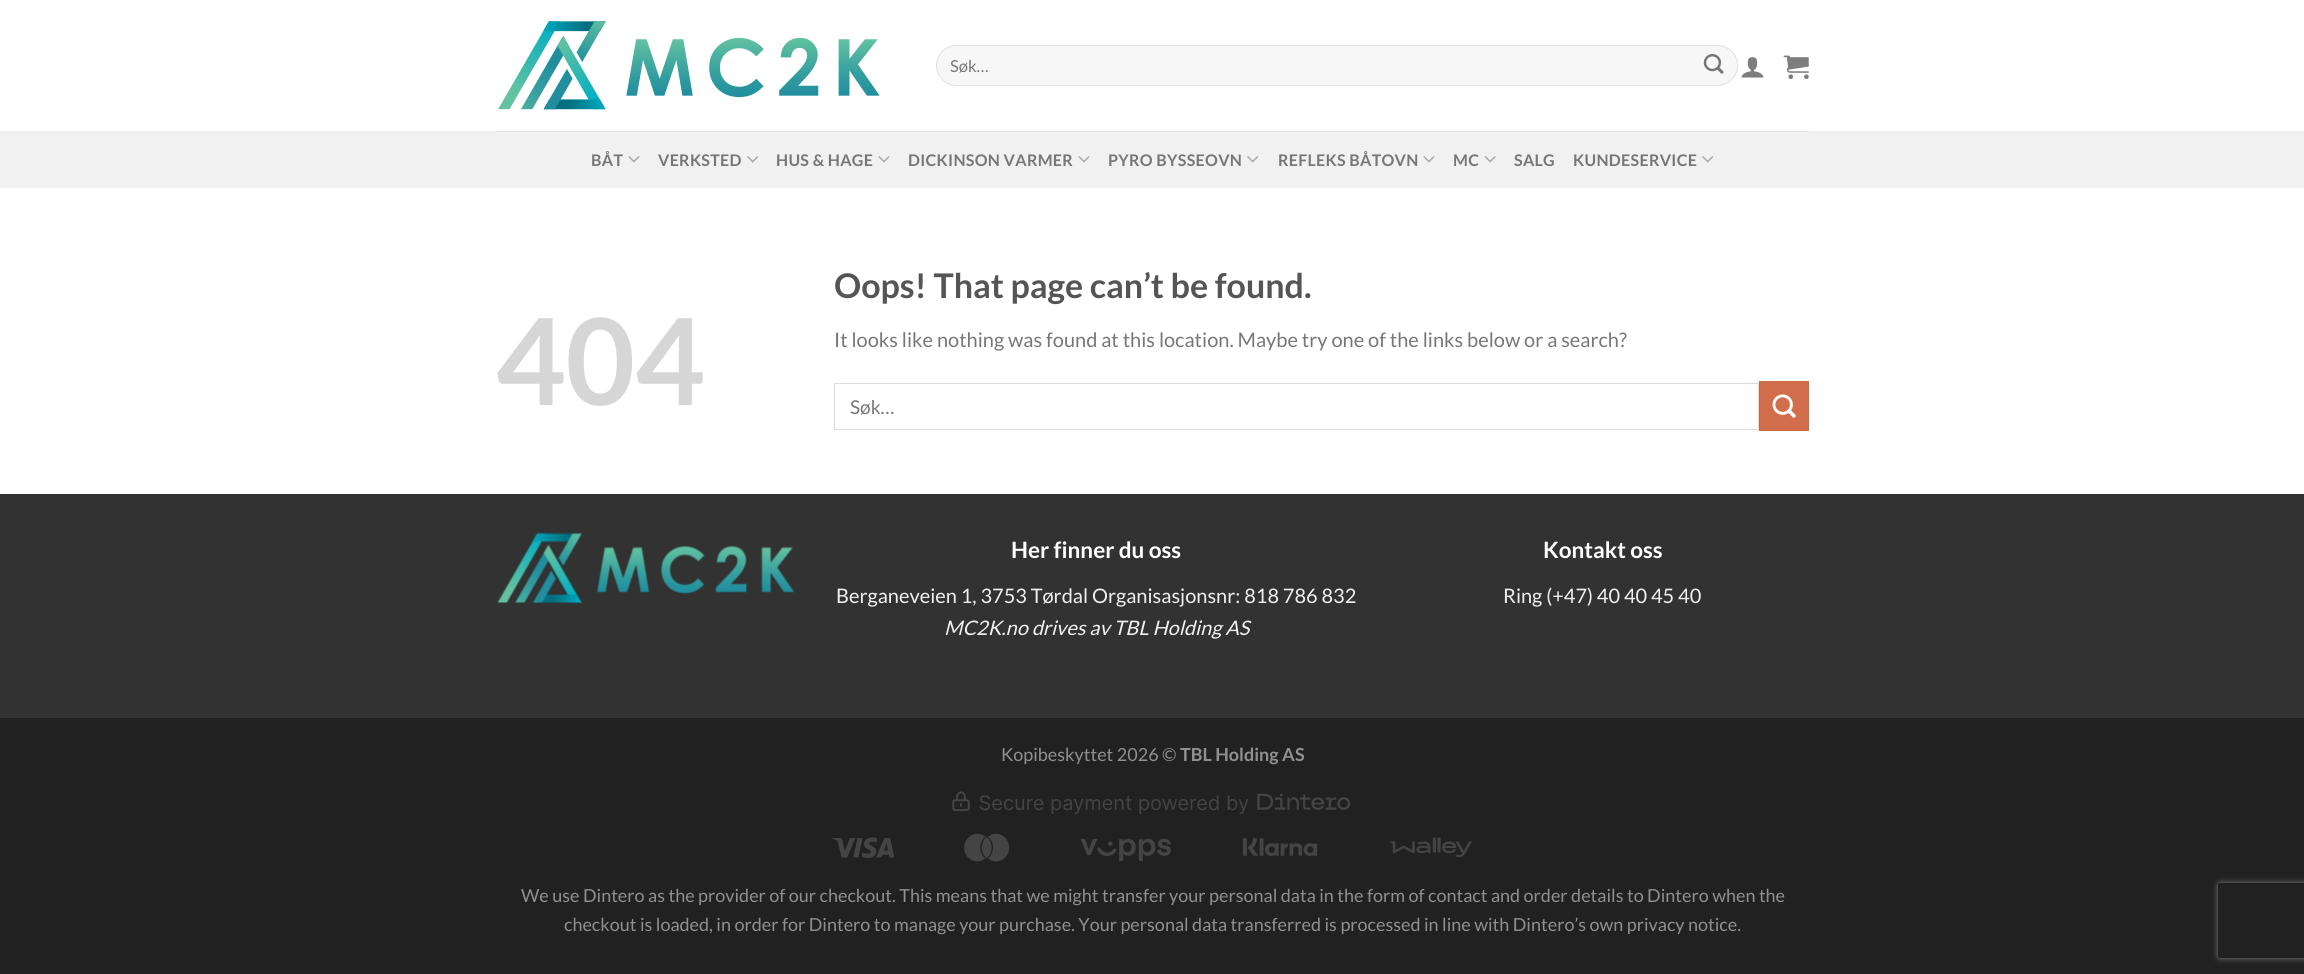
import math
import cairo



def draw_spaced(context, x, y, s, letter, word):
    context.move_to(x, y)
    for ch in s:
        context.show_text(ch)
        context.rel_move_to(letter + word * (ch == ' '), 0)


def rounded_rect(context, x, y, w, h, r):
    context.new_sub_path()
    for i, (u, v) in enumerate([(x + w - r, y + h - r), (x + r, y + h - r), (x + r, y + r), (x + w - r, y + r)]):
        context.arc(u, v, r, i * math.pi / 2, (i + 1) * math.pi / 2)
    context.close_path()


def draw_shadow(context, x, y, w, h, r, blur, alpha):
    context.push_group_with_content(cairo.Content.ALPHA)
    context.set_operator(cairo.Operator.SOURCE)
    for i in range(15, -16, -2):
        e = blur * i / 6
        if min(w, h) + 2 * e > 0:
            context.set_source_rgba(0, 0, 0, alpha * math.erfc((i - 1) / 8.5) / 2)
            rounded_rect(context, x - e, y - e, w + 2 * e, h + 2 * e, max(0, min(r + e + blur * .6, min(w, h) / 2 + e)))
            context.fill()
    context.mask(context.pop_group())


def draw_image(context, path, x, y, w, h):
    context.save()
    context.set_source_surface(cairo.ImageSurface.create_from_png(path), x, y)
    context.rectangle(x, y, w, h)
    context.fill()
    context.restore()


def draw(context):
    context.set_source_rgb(33 / 255, 33 / 255, 33 / 255)
    context.paint()
    context.set_source_rgb(1, 1, 1)
    context.rectangle(0, 0, 2304, 494)
    context.fill()
    draw_image(context, "images/1.png", 498, 21, 382, 89)
    context.set_source_rgb(247 / 255, 247 / 255, 247 / 255)
    rounded_rect(context, 936, 45, 802, 41, 20.5)
    context.fill()
    rounded_rect(context, 936.5, 45.5, 801, 40, 20)
    context.set_source_rgba(0, 0, 0, 0.09)
    context.set_line_width(1)
    context.stroke()
    draw_image(context, "images/2.png", 1703, 54, 21, 20)
    draw_image(context, "images/3.png", 1741, 57, 23, 21)
    draw_image(context, "images/4.png", 1783, 55, 26, 24)
    context.set_source_rgb(241 / 255, 241 / 255, 241 / 255)
    context.rectangle(0, 131, 2304, 57)
    context.fill()
    context.set_source_rgb(229 / 255, 229 / 255, 229 / 255)
    context.rectangle(496, 131, 1313, 1)
    context.fill()
    draw_image(context, "images/5.png", 628, 156, 12, 7)
    draw_image(context, "images/6.png", 747, 156, 12, 7)
    draw_image(context, "images/5.png", 878, 156, 12, 7)
    draw_image(context, "images/5.png", 1078, 156, 12, 7)
    draw_image(context, "images/6.png", 1247, 156, 12, 7)
    draw_image(context, "images/5.png", 1423, 156, 12, 7)
    draw_image(context, "images/7.png", 1484, 156, 12, 7)
    draw_image(context, "images/6.png", 1702, 156, 12, 7)
    context.rectangle(834.5, 383.5, 924, 46)
    context.set_source_rgb(221 / 255, 221 / 255, 221 / 255)
    context.stroke()
    context.set_source_rgb(210 / 255, 110 / 255, 75 / 255)
    context.rectangle(1759.5, 381.5, 49, 49)
    context.fill_preserve()
    context.set_source_rgb(200 / 255, 105 / 255, 71 / 255)
    context.stroke()
    draw_image(context, "images/8.png", 1772, 394, 24, 24)
    context.set_source_rgb(50 / 255, 50 / 255, 50 / 255)
    context.rectangle(0, 494, 2304, 224)
    context.fill()
    draw_image(context, "images/9.png", 497, 532, 298, 72)
    draw_image(context, "images/10.png", 831, 791, 641, 71)
    context.save()
    context.set_fill_rule(cairo.FillRule.EVEN_ODD)
    context.new_path()
    context.move_to(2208, 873)
    context.line_to(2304, 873)
    context.line_to(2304, 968)
    context.line_to(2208, 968)
    context.close_path()
    context.move_to(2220.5, 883)
    context.line_to(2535.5, 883)
    context.curve_to(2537, 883, 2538, 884, 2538, 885.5)
    context.line_to(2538, 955.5)
    context.curve_to(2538, 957, 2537, 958, 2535.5, 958)
    context.line_to(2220.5, 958)
    context.curve_to(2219, 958, 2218, 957, 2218, 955.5)
    context.line_to(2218, 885.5)
    context.curve_to(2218, 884, 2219, 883, 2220.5, 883)
    context.close_path()
    context.clip()
    context.set_source_rgb(128 / 255, 128 / 255, 128 / 255)
    draw_shadow(context, 2218, 883, 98, 75, 2.5, 3, 1)
    context.restore()
    context.select_font_face("Lato")
    context.set_font_size(16.5)
    context.set_source_rgb(119 / 255, 119 / 255, 119 / 255)
    context.move_to(950, 72)
    context.show_text("Søk…")
    context.select_font_face("Lato", cairo.FontSlant.NORMAL, cairo.FontWeight.BOLD)
    context.set_font_size(16)
    draw_spaced(context, 591, 166, "BÅT", 0.3, 0)
    draw_spaced(context, 658, 166, "VERKSTED", 0.3, 0)
    draw_spaced(context, 776, 166, "HUS & HAGE", 0.3, 0)
    draw_spaced(context, 908, 166, "DICKINSON VARMER", 0.3, 0)
    draw_spaced(context, 1108, 166, "PYRO BYSSEOVN", 0.3, 0)
    draw_spaced(context, 1278, 166, "REFLEKS BÅTOVN", 0.3, 0)
    draw_spaced(context, 1453, 166, "MC", 0.3, 0)
    draw_spaced(context, 1514, 166, "SALG", 0.3, 0)
    draw_spaced(context, 1573, 166, "KUNDESERVICE", 0.3, 0)
    context.set_font_size(120)
    context.set_source_rgb(214 / 255, 214 / 255, 214 / 255)
    context.move_to(496, 405)
    context.show_text("404")
    context.set_font_size(34)
    context.set_source_rgb(85 / 255, 85 / 255, 85 / 255)
    context.move_to(834, 298)
    context.show_text("Oops! That page can’t be found.")
    context.select_font_face("Lato")
    context.set_font_size(20)
    context.set_source_rgb(119 / 255, 119 / 255, 119 / 255)
    context.move_to(834, 347)
    context.show_text("It looks like nothing was found at this location. Maybe try one of the links below or a search?")
    context.set_font_size(19)
    context.move_to(850, 414)
    context.show_text("Søk…")
    context.select_font_face("Lato", cairo.FontSlant.NORMAL, cairo.FontWeight.BOLD)
    context.set_font_size(22.5)
    context.set_source_rgb(1, 1, 1)
    context.move_to(1011, 558)
    context.show_text("Her finner du oss")
    context.select_font_face("Lato")
    context.set_font_size(20)
    context.set_source_rgb(241 / 255, 241 / 255, 241 / 255)
    context.move_to(836, 603)
    context.show_text("Berganeveien 1, 3753 Tørdal Organisasjonsnr: 818 786 832")
    context.select_font_face("Lato", cairo.FontSlant.ITALIC)
    context.move_to(944, 635)
    context.show_text("MC2K.no drives av TBL Holding AS")
    context.select_font_face("Lato", cairo.FontSlant.NORMAL, cairo.FontWeight.BOLD)
    context.set_font_size(22.5)
    context.set_source_rgb(1, 1, 1)
    context.move_to(1543, 558)
    context.show_text("Kontakt oss")
    context.select_font_face("Lato")
    context.set_font_size(20)
    context.set_source_rgb(241 / 255, 241 / 255, 241 / 255)
    context.move_to(1503, 603)
    context.show_text("Ring (+47) 40 40 45 40")
    context.set_font_size(18)
    context.set_source_rgb(144 / 255, 144 / 255, 144 / 255)
    context.move_to(1001, 761)
    context.show_text("Kopibeskyttet 2026 ©")
    context.select_font_face("Lato", cairo.FontSlant.NORMAL, cairo.FontWeight.BOLD)
    context.move_to(1180, 761)
    context.show_text("TBL Holding AS")
    context.select_font_face("Lato")
    context.move_to(521, 902)
    context.show_text("We use Dintero as the provider of our checkout. This means that we might transfer your personal data in the form of contact and order details to Dintero when the")
    context.move_to(564, 931)
    context.show_text("checkout is loaded, in order for Dintero to manage your purchase. Your personal data transferred is processed in line with Dintero’s own privacy notice.")


surface = cairo.ImageSurface(cairo.Format.RGB24, 2304, 974)
context = cairo.Context(surface)
options = cairo.FontOptions()
options.set_hint_metrics(cairo.HintMetrics.OFF)
options.set_hint_style(cairo.HintStyle.NONE)
context.set_font_options(options)
context.set_miter_limit(4)
draw(context)
surface.write_to_png("out.png")
